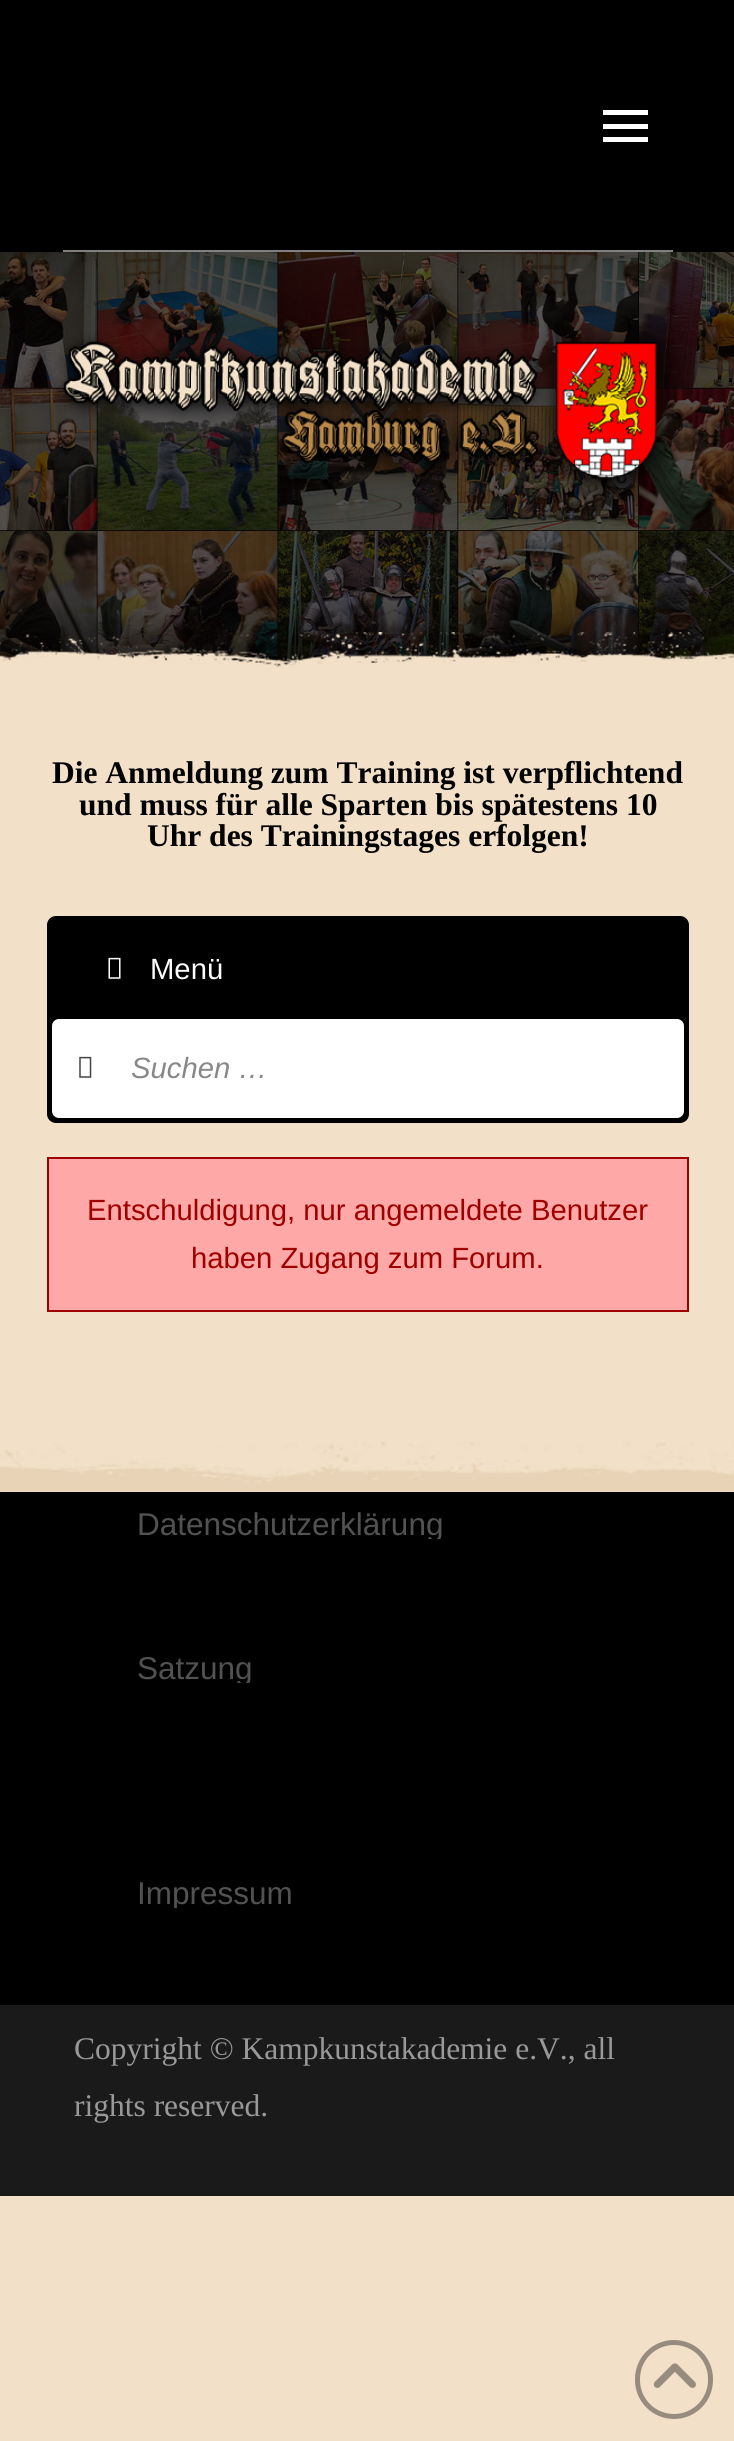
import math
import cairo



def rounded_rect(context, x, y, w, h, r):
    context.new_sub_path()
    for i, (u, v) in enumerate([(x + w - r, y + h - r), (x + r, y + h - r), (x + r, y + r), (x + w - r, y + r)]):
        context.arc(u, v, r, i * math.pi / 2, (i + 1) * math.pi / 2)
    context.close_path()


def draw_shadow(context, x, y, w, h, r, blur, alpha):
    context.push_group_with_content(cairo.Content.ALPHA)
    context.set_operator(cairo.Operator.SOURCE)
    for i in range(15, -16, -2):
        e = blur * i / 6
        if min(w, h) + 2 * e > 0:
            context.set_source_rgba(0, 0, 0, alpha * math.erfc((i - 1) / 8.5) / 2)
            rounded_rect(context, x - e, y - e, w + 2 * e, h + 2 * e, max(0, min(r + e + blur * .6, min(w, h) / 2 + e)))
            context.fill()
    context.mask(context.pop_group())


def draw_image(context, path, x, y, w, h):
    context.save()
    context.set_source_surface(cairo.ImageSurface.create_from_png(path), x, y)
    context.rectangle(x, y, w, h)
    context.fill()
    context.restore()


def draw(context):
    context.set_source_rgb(242 / 255, 224 / 255, 200 / 255)
    context.paint()
    context.set_source_rgb(0, 0, 0)
    context.rectangle(0, 0, 734, 252)
    context.fill()
    context.set_source_rgb(128 / 255, 128 / 255, 128 / 255)
    context.rectangle(63, 250, 610, 2)
    context.fill()
    context.set_source_rgb(1, 1, 1)
    context.rectangle(603, 110, 45, 5)
    context.fill()
    context.rectangle(603, 124, 45, 5)
    context.fill()
    context.rectangle(603, 137, 45, 5)
    context.fill()
    draw_image(context, "images/1.png", 0, 252, 734, 416)
    draw_image(context, "images/2.png", 54, 324, 627, 183)
    context.set_source_rgb(0, 0, 0)
    rounded_rect(context, 47, 916, 642, 207, 9)
    context.fill()
    draw_image(context, "images/3.png", 108, 957, 13, 22)
    context.set_source_rgb(1, 1, 1)
    rounded_rect(context, 52, 1019, 632, 99, 7)
    context.fill()
    draw_image(context, "images/4.png", 79, 1056, 13, 22)
    context.set_source_rgb(1, 168 / 255, 168 / 255)
    context.rectangle(48, 1158, 640, 153)
    context.fill_preserve()
    context.set_source_rgb(158 / 255, 0, 0)
    context.stroke()
    draw_image(context, "images/5.png", 0, 1442, 734, 50)
    context.set_source_rgb(0, 0, 0)
    context.rectangle(0, 1492, 734, 288)
    context.fill()
    context.set_source_rgb(0, 0, 0)
    draw_shadow(context, 0, 1787, 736, 225, 0, 28, 0.15)
    context.set_source_rgb(0, 0, 0)
    context.rectangle(0, 1780, 734, 225)
    context.fill()
    context.set_source_rgb(26 / 255, 26 / 255, 26 / 255)
    context.rectangle(0, 2005, 734, 191)
    context.fill()
    rounded_rect(context, 637.5, 2342.5, 73, 74, 36.5)
    context.set_source_rgb(151 / 255, 140 / 255, 125 / 255)
    context.set_line_width(5)
    context.stroke()
    draw_image(context, "images/6.png", 653, 2363, 43, 25)
    context.select_font_face("Liberation Serif", cairo.FontSlant.NORMAL, cairo.FontWeight.BOLD)
    context.set_font_size(31.5)
    context.set_source_rgb(0, 0, 0)
    context.move_to(52, 783)
    context.show_text("Die Anmeldung zum Training ist verpflichtend")
    context.move_to(79, 815)
    context.show_text("und muss für alle Sparten bis spätestens 10")
    context.move_to(147, 846)
    context.show_text("Uhr des Trainingstages erfolgen!")
    context.select_font_face("Liberation Sans")
    context.set_font_size(29.25)
    context.set_source_rgb(1, 1, 1)
    context.move_to(150, 979)
    context.show_text("Menü")
    context.select_font_face("Liberation Sans", cairo.FontSlant.ITALIC)
    context.set_source_rgb(136 / 255, 136 / 255, 136 / 255)
    context.move_to(131, 1078)
    context.show_text("Suchen …")
    context.select_font_face("Liberation Sans")
    context.set_source_rgb(158 / 255, 0, 0)
    context.move_to(87, 1220)
    context.show_text("Entschuldigung, nur angemeldete Benutzer")
    context.move_to(191, 1268)
    context.show_text("haben Zugang zum Forum.")
    context.save()
    context.rectangle(137, 1508, 306, 31)
    context.clip()
    context.set_font_size(31.5)
    context.set_source_rgb(82 / 255, 82 / 255, 82 / 255)
    context.move_to(137, 1535)
    context.show_text("Datenschutzerklärung")
    context.restore()
    context.save()
    context.rectangle(137, 1652, 115, 31)
    context.clip()
    context.set_font_size(31.5)
    context.set_source_rgb(82 / 255, 82 / 255, 82 / 255)
    context.move_to(137, 1679)
    context.show_text("Satzung")
    context.restore()
    context.save()
    context.rectangle(137, 1877, 156, 31)
    context.clip()
    context.set_font_size(31.5)
    context.set_source_rgb(82 / 255, 82 / 255, 82 / 255)
    context.move_to(137, 1904)
    context.show_text("Impressum")
    context.restore()
    context.select_font_face("Liberation Serif")
    context.set_font_size(31.5)
    context.set_source_rgb(153 / 255, 153 / 255, 153 / 255)
    context.move_to(74, 2059)
    context.show_text("Copyright © Kampkunstakademie e.V., all")
    context.move_to(74, 2116)
    context.show_text("rights reserved.")


surface = cairo.ImageSurface(cairo.Format.RGB24, 734, 2441)
context = cairo.Context(surface)
options = cairo.FontOptions()
options.set_hint_metrics(cairo.HintMetrics.OFF)
options.set_hint_style(cairo.HintStyle.NONE)
context.set_font_options(options)
context.set_miter_limit(4)
draw(context)
surface.write_to_png("out.png")
